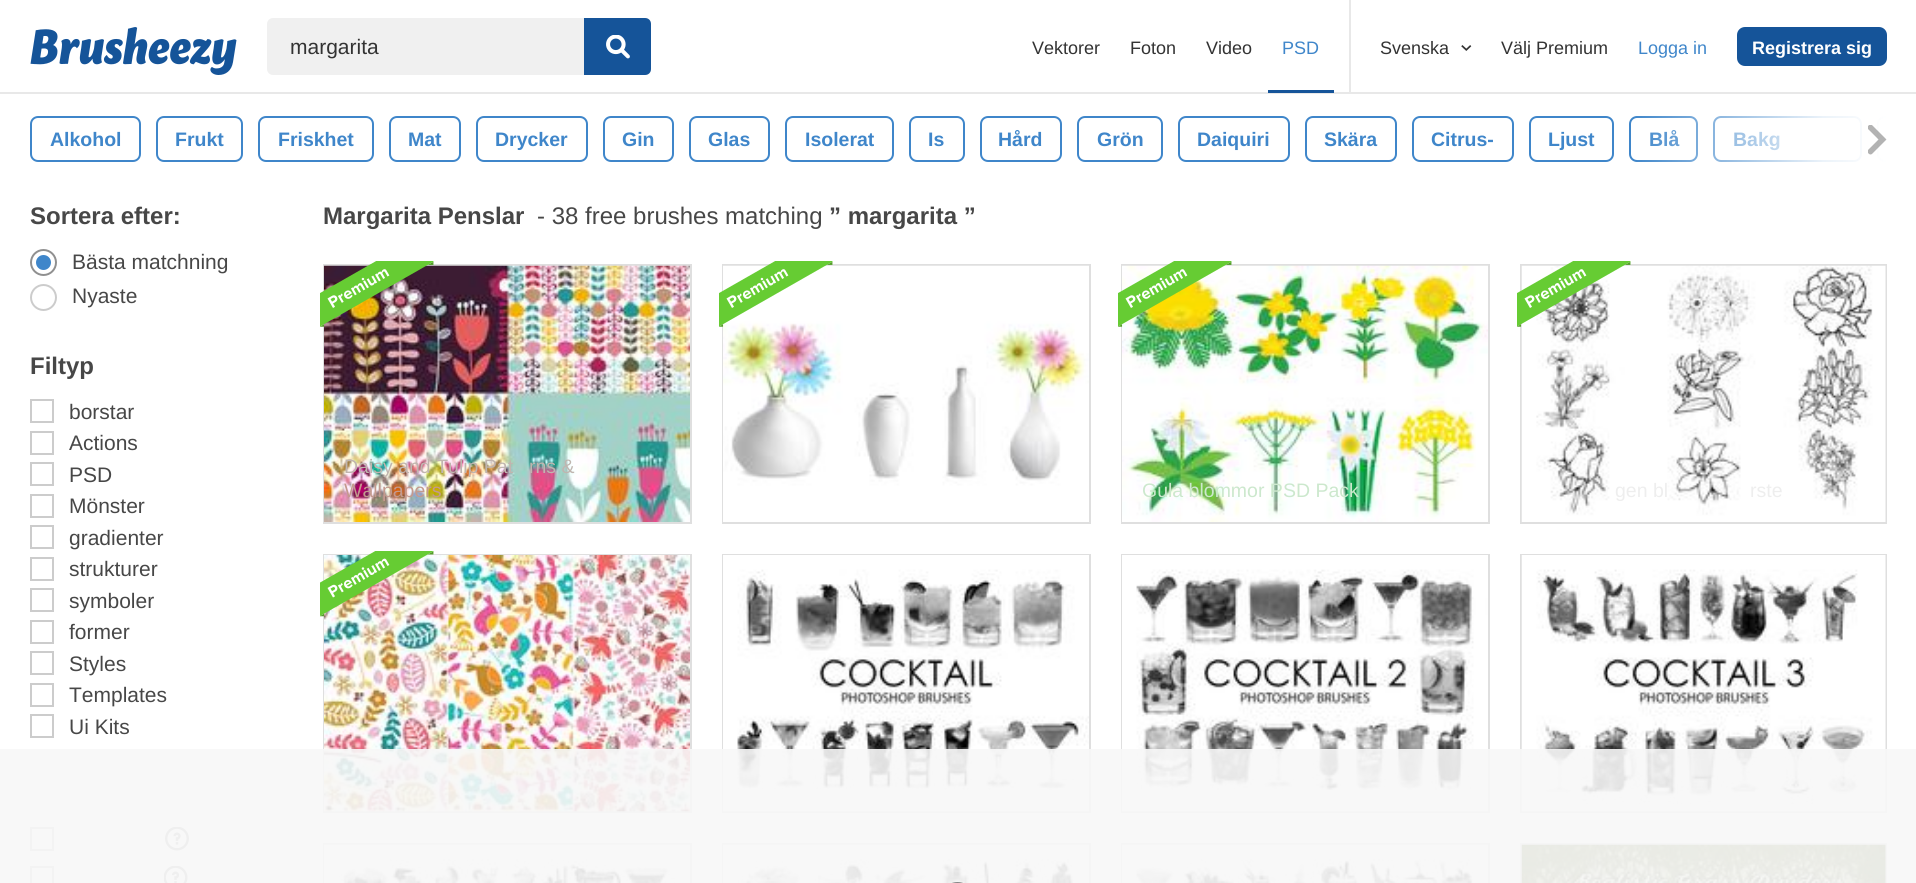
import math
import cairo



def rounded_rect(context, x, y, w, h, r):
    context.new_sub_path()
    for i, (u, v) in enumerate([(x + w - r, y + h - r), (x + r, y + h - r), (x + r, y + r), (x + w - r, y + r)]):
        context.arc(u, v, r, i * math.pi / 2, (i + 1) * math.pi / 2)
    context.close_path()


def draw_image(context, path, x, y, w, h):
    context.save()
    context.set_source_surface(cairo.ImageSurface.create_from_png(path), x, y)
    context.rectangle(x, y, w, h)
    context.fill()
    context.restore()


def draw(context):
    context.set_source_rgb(1, 1, 1)
    context.paint()
    context.set_source_rgb(232 / 255, 232 / 255, 232 / 255)
    context.rectangle(0, 92, 1916, 2)
    context.fill()
    draw_image(context, "images/1.png", 30, 27, 207, 48)
    context.set_source_rgb(240 / 255, 240 / 255, 240 / 255)
    rounded_rect(context, 267, 18, 384, 57, 6)
    context.fill()
    context.set_source_rgb(21 / 255, 84 / 255, 153 / 255)
    context.new_path()
    context.move_to(584, 18)
    context.line_to(645, 18)
    context.curve_to(648.5, 18, 651, 20.5, 651, 24)
    context.line_to(651, 69)
    context.curve_to(651, 72.5, 648.5, 75, 645, 75)
    context.line_to(584, 75)
    context.close_path()
    context.fill()
    draw_image(context, "images/2.png", 606, 35, 24, 24)
    context.rectangle(1268, 90, 66, 3)
    context.fill()
    context.set_source_rgb(232 / 255, 232 / 255, 232 / 255)
    context.rectangle(1349, 0, 2, 93)
    context.fill()
    draw_image(context, "images/3.png", 1461, 45, 11, 6)
    context.set_source_rgb(21 / 255, 84 / 255, 153 / 255)
    rounded_rect(context, 1737, 27, 150, 39, 8)
    context.fill()
    rounded_rect(context, 31, 117, 109, 44, 7)
    context.set_source_rgb(63 / 255, 134 / 255, 202 / 255)
    context.stroke()
    rounded_rect(context, 157, 117, 85, 44, 7)
    context.stroke()
    rounded_rect(context, 259, 117, 114, 44, 7)
    context.stroke()
    rounded_rect(context, 390, 117, 70, 44, 7)
    context.stroke()
    rounded_rect(context, 477, 117, 110, 44, 7)
    context.stroke()
    rounded_rect(context, 604, 117, 69, 44, 7)
    context.stroke()
    rounded_rect(context, 690, 117, 79, 44, 7)
    context.stroke()
    rounded_rect(context, 786, 117, 107, 44, 7)
    context.stroke()
    rounded_rect(context, 910, 117, 54, 44, 7)
    context.stroke()
    rounded_rect(context, 981, 117, 80, 44, 7)
    context.stroke()
    rounded_rect(context, 1078, 117, 84, 44, 7)
    context.stroke()
    rounded_rect(context, 1179, 117, 110, 44, 7)
    context.stroke()
    rounded_rect(context, 1306, 117, 90, 44, 7)
    context.stroke()
    rounded_rect(context, 1413, 117, 100, 44, 7)
    context.stroke()
    rounded_rect(context, 1530, 117, 83, 44, 7)
    context.stroke()
    rounded_rect(context, 1630, 117, 67, 44, 7)
    context.stroke()
    rounded_rect(context, 1714, 117, 147, 44, 7)
    context.stroke()
    context.save()
    context.rectangle(30, 116, 1857, 66)
    context.clip()
    rounded_rect(context, 1878, 117, 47, 44, 7)
    context.stroke()
    context.restore()
    context.arc(43.5, 262.5, 12.5, 0, 2 * math.pi)
    context.set_source_rgb(144 / 255, 144 / 255, 144 / 255)
    context.stroke()
    context.set_source_rgb(63 / 255, 134 / 255, 202 / 255)
    context.arc(43.5, 262.5, 7.5, 0, 2 * math.pi)
    context.fill()
    context.arc(43.5, 297.5, 12.5, 0, 2 * math.pi)
    context.set_source_rgb(204 / 255, 204 / 255, 204 / 255)
    context.stroke()
    context.rectangle(31, 400, 22, 22)
    context.stroke()
    context.rectangle(31, 432, 22, 22)
    context.stroke()
    context.rectangle(31, 463, 22, 22)
    context.stroke()
    context.rectangle(31, 495, 22, 22)
    context.stroke()
    context.rectangle(31, 526, 22, 22)
    context.stroke()
    context.rectangle(31, 558, 22, 22)
    context.stroke()
    context.rectangle(31, 589, 22, 22)
    context.stroke()
    context.rectangle(31, 621, 22, 22)
    context.stroke()
    context.rectangle(31, 652, 22, 22)
    context.stroke()
    context.rectangle(31, 684, 22, 22)
    context.stroke()
    context.rectangle(31, 715, 22, 22)
    context.stroke()
    context.rectangle(31, 828, 22, 22)
    context.stroke()
    draw_image(context, "images/5.png", 165, 827, 24, 24)
    context.rectangle(31, 867, 22, 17)
    context.stroke()
    draw_image(context, "images/6.png", 164, 866, 24, 17)
    context.rectangle(324, 265, 367, 258)
    context.set_source_rgb(223 / 255, 223 / 255, 223 / 255)
    context.stroke()
    draw_image(context, "images/8.png", 324, 265, 366, 257)
    draw_image(context, "images/7.png", 320, 261, 114, 66)
    context.rectangle(723, 265, 367, 258)
    context.stroke()
    draw_image(context, "images/10.png", 723, 265, 366, 257)
    draw_image(context, "images/9.png", 719, 261, 114, 66)
    context.rectangle(1122, 265, 367, 258)
    context.stroke()
    draw_image(context, "images/12.png", 1122, 265, 366, 257)
    draw_image(context, "images/11.png", 1118, 261, 114, 66)
    context.rectangle(1521, 265, 365, 258)
    context.stroke()
    draw_image(context, "images/14.png", 1521, 265, 365, 257)
    draw_image(context, "images/13.png", 1517, 261, 114, 66)
    context.rectangle(324, 555, 367, 257)
    context.stroke()
    draw_image(context, "images/16.png", 324, 555, 366, 257)
    draw_image(context, "images/15.png", 320, 551, 114, 66)
    context.rectangle(723, 555, 367, 257)
    context.stroke()
    draw_image(context, "images/17.png", 723, 555, 366, 257)
    context.rectangle(1122, 555, 367, 257)
    context.stroke()
    draw_image(context, "images/18.png", 1122, 555, 366, 257)
    context.rectangle(1521, 555, 365, 257)
    context.stroke()
    draw_image(context, "images/19.png", 1521, 555, 365, 257)
    context.rectangle(324, 844, 367, 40)
    context.stroke()
    draw_image(context, "images/20.png", 324, 844, 366, 39)
    context.rectangle(723, 844, 367, 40)
    context.stroke()
    draw_image(context, "images/21.png", 723, 844, 366, 39)
    context.rectangle(1122, 844, 367, 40)
    context.stroke()
    draw_image(context, "images/22.png", 1122, 844, 366, 39)
    context.rectangle(1521, 844, 365, 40)
    context.stroke()
    draw_image(context, "images/23.png", 1521, 844, 365, 39)
    context.set_source_rgba(247 / 255, 247 / 255, 247 / 255, 0.9)
    context.rectangle(0, 749, 1916, 134)
    context.fill()
    rounded_rect(context, 942, 883, 31, 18, 15.5)
    context.set_source_rgb(136 / 255, 136 / 255, 136 / 255)
    context.stroke()
    context.select_font_face("Liberation Sans")
    context.set_font_size(21)
    context.set_source_rgb(51 / 255, 51 / 255, 51 / 255)
    context.move_to(290, 54)
    context.show_text("margarita")
    context.set_font_size(18)
    context.move_to(1032, 54)
    context.show_text("Vektorer")
    context.move_to(1130, 54)
    context.show_text("Foton")
    context.move_to(1206, 54)
    context.show_text("Video")
    context.set_source_rgb(63 / 255, 134 / 255, 202 / 255)
    context.move_to(1282, 54)
    context.show_text("PSD")
    context.set_source_rgb(51 / 255, 51 / 255, 51 / 255)
    context.move_to(1380, 54)
    context.show_text("Svenska")
    context.move_to(1501, 54)
    context.show_text("Välj Premium")
    context.set_source_rgb(63 / 255, 134 / 255, 202 / 255)
    context.move_to(1638, 54)
    context.show_text("Logga in")
    context.select_font_face("Liberation Sans", cairo.FontSlant.NORMAL, cairo.FontWeight.BOLD)
    context.set_source_rgb(1, 1, 1)
    context.move_to(1752, 54)
    context.show_text("Registrera sig")
    context.set_font_size(19.5)
    context.set_source_rgb(63 / 255, 134 / 255, 202 / 255)
    context.move_to(50, 146)
    context.show_text("Alkohol")
    context.move_to(175, 146)
    context.show_text("Frukt")
    context.move_to(278, 146)
    context.show_text("Friskhet")
    context.move_to(408, 146)
    context.show_text("Mat")
    context.move_to(495, 146)
    context.show_text("Drycker")
    context.move_to(622, 146)
    context.show_text("Gin")
    context.move_to(708, 146)
    context.show_text("Glas")
    context.move_to(805, 146)
    context.show_text("Isolerat")
    context.move_to(928, 146)
    context.show_text("Is")
    context.move_to(998, 146)
    context.show_text("Hård")
    context.move_to(1097, 146)
    context.show_text("Grön")
    context.move_to(1197, 146)
    context.show_text("Daiquiri")
    context.move_to(1324, 146)
    context.show_text("Skära")
    context.move_to(1431, 146)
    context.show_text("Citrus-")
    context.move_to(1548, 146)
    context.show_text("Ljust")
    context.move_to(1649, 146)
    context.show_text("Blå")
    context.move_to(1733, 146)
    context.show_text("Bakg")
    gradient = cairo.LinearGradient(1632, 139, 1887, 139)
    gradient.add_color_stop_rgba(0, 1, 1, 1, 0)
    gradient.add_color_stop_rgba(0.75, 1, 1, 1, 0.9)
    gradient.add_color_stop_rgba(1, 1, 1, 1, 1)
    context.set_source(gradient)
    context.rectangle(1637, 116, 250, 46)
    context.fill()
    draw_image(context, "images/4.png", 1868, 125, 19, 30)
    context.set_font_size(24)
    context.set_source_rgb(71 / 255, 71 / 255, 71 / 255)
    context.move_to(30, 224)
    context.show_text("Sortera efter:")
    context.select_font_face("Liberation Sans")
    context.set_font_size(21)
    context.move_to(72, 269)
    context.show_text("Bästa matchning")
    context.move_to(72, 303)
    context.show_text("Nyaste")
    context.select_font_face("Liberation Sans", cairo.FontSlant.NORMAL, cairo.FontWeight.BOLD)
    context.set_font_size(24)
    context.move_to(30, 374)
    context.show_text("Filtyp")
    context.select_font_face("Liberation Sans")
    context.set_font_size(21)
    context.move_to(69, 419)
    context.show_text("borstar")
    context.move_to(69, 450)
    context.show_text("Actions")
    context.move_to(69, 482)
    context.show_text("PSD")
    context.move_to(69, 513)
    context.show_text("Mönster")
    context.move_to(69, 545)
    context.show_text("gradienter")
    context.move_to(69, 576)
    context.show_text("strukturer")
    context.move_to(69, 608)
    context.show_text("symboler")
    context.move_to(69, 639)
    context.show_text("former")
    context.move_to(69, 671)
    context.show_text("Styles")
    context.move_to(69, 702)
    context.show_text("Templates")
    context.move_to(69, 734)
    context.show_text("Ui Kits")
    context.select_font_face("Liberation Sans", cairo.FontSlant.NORMAL, cairo.FontWeight.BOLD)
    context.set_font_size(24)
    context.move_to(323, 224)
    context.show_text("Margarita Penslar")
    context.select_font_face("Liberation Sans")
    context.move_to(537, 224)
    context.show_text("- 38 free brushes matching")
    context.select_font_face("Liberation Sans", cairo.FontSlant.NORMAL, cairo.FontWeight.BOLD)
    context.move_to(829, 224)
    context.show_text("” margarita ”")
    context.select_font_face("Liberation Sans")
    context.set_font_size(19.5)
    context.set_source_rgb(192 / 255, 181 / 255, 175 / 255)
    context.move_to(344, 473)
    context.show_text("Daisy and Tulip Pat")
    context.move_to(529, 473)
    context.show_text("rns &")
    context.set_source_rgb(195 / 255, 154 / 255, 142 / 255)
    context.move_to(344, 497)
    context.show_text("Wallpapers")
    context.set_source_rgb(204 / 255, 232 / 255, 205 / 255)
    context.move_to(1142, 497)
    context.show_text("Gula blommor PSD Pack")
    context.set_source_rgb(238 / 255, 238 / 255, 238 / 255)
    context.move_to(1615, 497)
    context.show_text("gen bl")
    context.move_to(1750, 497)
    context.show_text("rste")


surface = cairo.ImageSurface(cairo.Format.RGB24, 1916, 883)
context = cairo.Context(surface)
options = cairo.FontOptions()
options.set_hint_metrics(cairo.HintMetrics.OFF)
options.set_hint_style(cairo.HintStyle.NONE)
context.set_font_options(options)
context.set_miter_limit(4)
draw(context)
surface.write_to_png("out.png")
